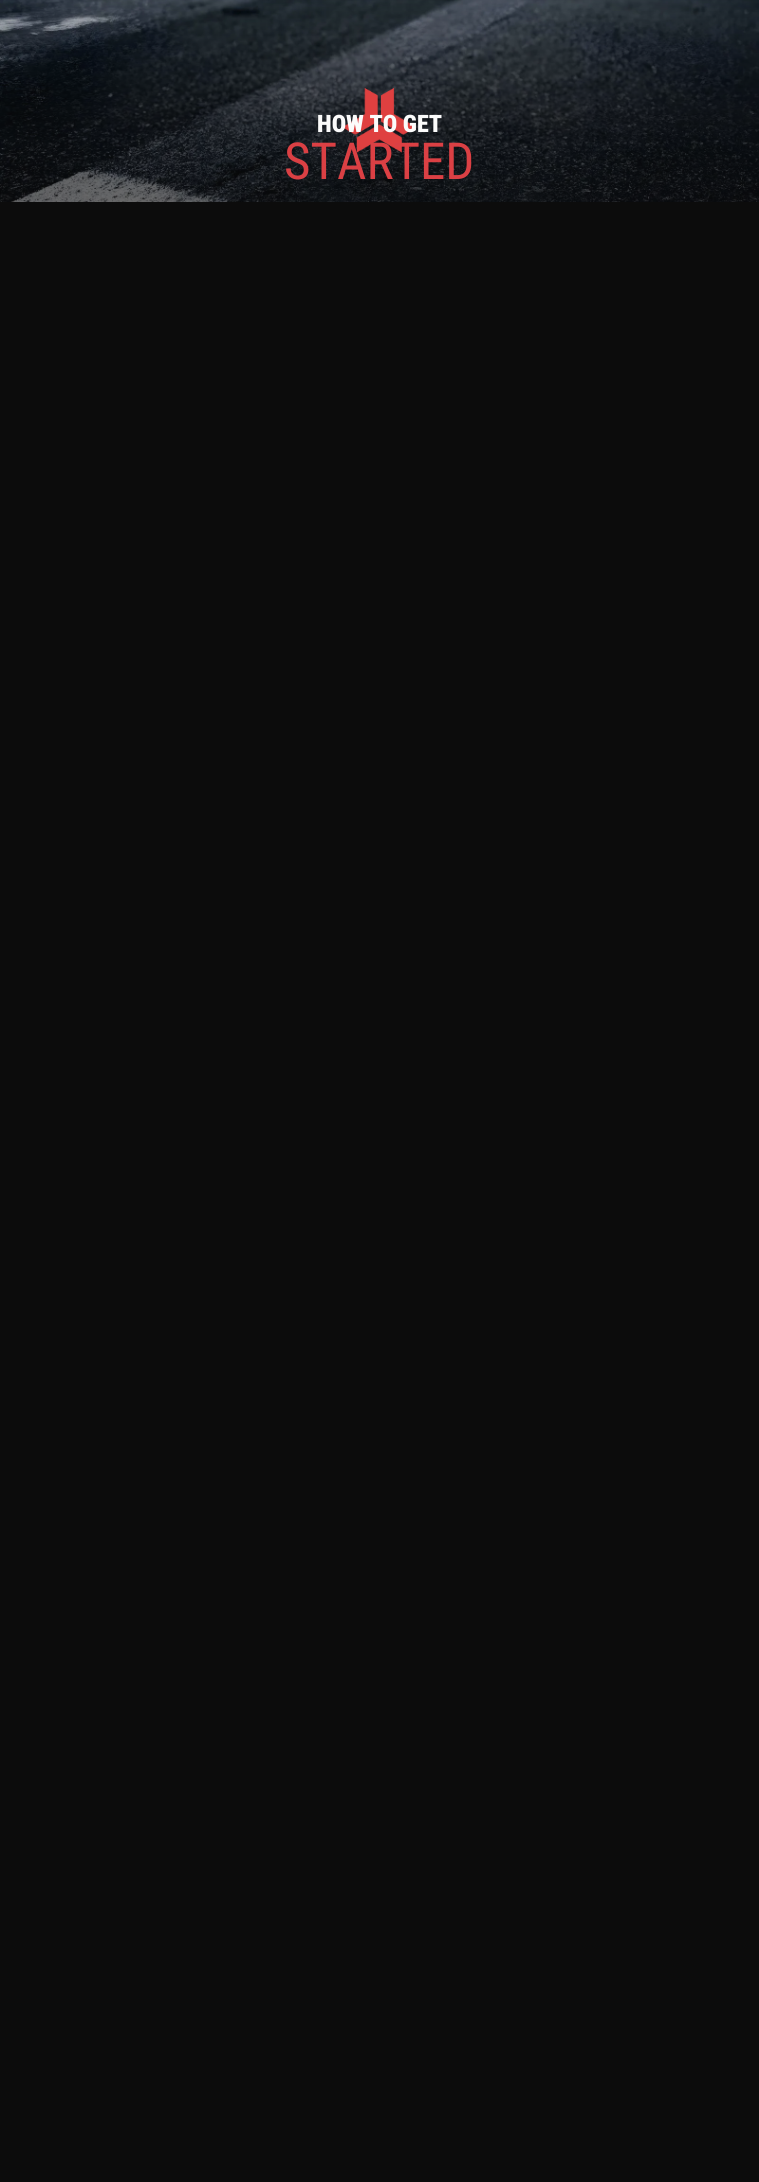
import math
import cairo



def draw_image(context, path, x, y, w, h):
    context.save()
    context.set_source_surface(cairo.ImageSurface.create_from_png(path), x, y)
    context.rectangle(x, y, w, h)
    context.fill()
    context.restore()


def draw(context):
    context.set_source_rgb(12 / 255, 12 / 255, 12 / 255)
    context.paint()
    draw_image(context, "images/1.png", 0, 0, 759, 202)
    draw_image(context, "images/2.png", 342, 88, 75, 65)
    context.select_font_face("Roboto Condensed Black")
    context.set_font_size(24)
    context.set_source_rgb(251 / 255, 251 / 255, 251 / 255)
    context.move_to(317, 132)
    context.show_text("HOW TO GET")
    context.select_font_face("Roboto Condensed")
    context.set_font_size(51)
    context.set_source_rgb(219 / 255, 64 / 255, 68 / 255)
    context.move_to(284, 179)
    context.show_text("STARTED")


surface = cairo.ImageSurface(cairo.Format.RGB24, 759, 2182)
context = cairo.Context(surface)
options = cairo.FontOptions()
options.set_hint_metrics(cairo.HintMetrics.OFF)
options.set_hint_style(cairo.HintStyle.NONE)
context.set_font_options(options)
context.set_miter_limit(4)
draw(context)
surface.write_to_png("out.png")
